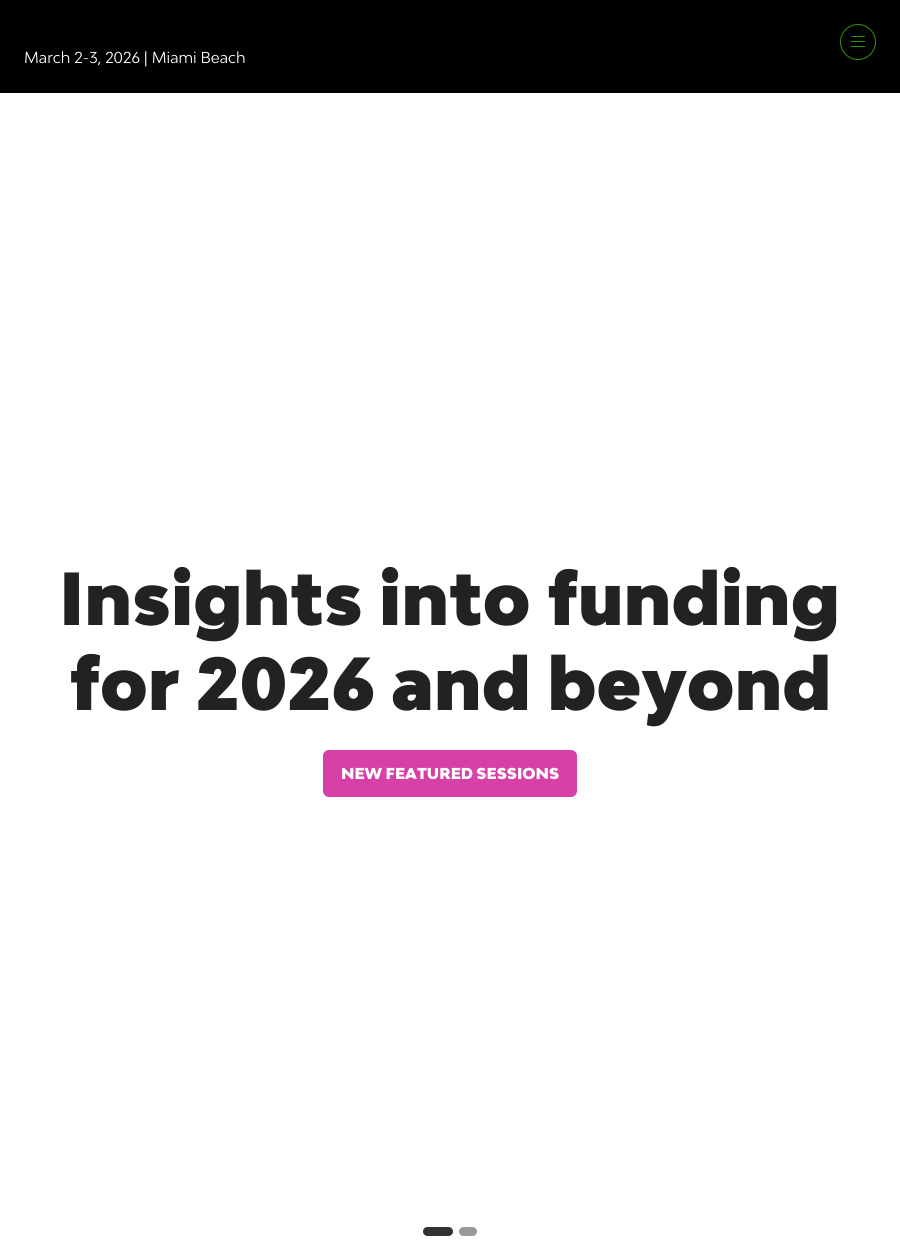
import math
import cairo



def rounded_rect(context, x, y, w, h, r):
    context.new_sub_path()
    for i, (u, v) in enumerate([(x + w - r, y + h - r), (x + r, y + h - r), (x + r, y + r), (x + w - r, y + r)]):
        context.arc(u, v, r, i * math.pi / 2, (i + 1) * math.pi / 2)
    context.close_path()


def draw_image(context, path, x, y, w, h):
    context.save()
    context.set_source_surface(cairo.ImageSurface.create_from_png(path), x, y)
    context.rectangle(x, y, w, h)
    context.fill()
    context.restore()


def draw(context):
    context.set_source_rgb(1, 1, 1)
    context.paint()
    context.set_source_rgb(0, 0, 0)
    context.rectangle(0, 0, 900, 93)
    context.fill()
    context.arc(858, 42, 17.5, 0, 2 * math.pi)
    context.set_source_rgb(50 / 255, 148 / 255, 8 / 255)
    context.set_line_width(1)
    context.stroke()
    draw_image(context, "images/1.png", 851, 36, 14, 11)
    context.set_source_rgb(215 / 255, 65 / 255, 167 / 255)
    rounded_rect(context, 323, 750, 254, 47, 6)
    context.fill()
    context.set_source_rgb(51 / 255, 51 / 255, 51 / 255)
    rounded_rect(context, 423, 1227, 30, 9, 4.5)
    context.fill()
    context.set_source_rgb(153 / 255, 153 / 255, 153 / 255)
    rounded_rect(context, 459, 1227, 18, 9, 4.5)
    context.fill()
    context.select_font_face("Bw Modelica")
    context.set_font_size(15)
    context.set_source_rgb(1, 1, 1)
    context.move_to(24, 63)
    context.show_text("March 2-3, 2026 | Miami Beach")
    context.select_font_face("Bw Modelica Black")
    context.set_font_size(71)
    context.set_source_rgb(34 / 255, 34 / 255, 34 / 255)
    context.move_to(59, 625)
    context.show_text("Insights into funding")
    context.move_to(69, 710)
    context.show_text("for 2026 and beyond")
    context.set_font_size(15)
    context.set_source_rgb(1, 1, 1)
    context.move_to(341, 779)
    context.show_text("NEW FEATURED SESSIONS")


surface = cairo.ImageSurface(cairo.Format.RGB24, 900, 1260)
context = cairo.Context(surface)
options = cairo.FontOptions()
options.set_hint_metrics(cairo.HintMetrics.OFF)
options.set_hint_style(cairo.HintStyle.NONE)
context.set_font_options(options)
context.set_miter_limit(4)
draw(context)
surface.write_to_png("out.png")
